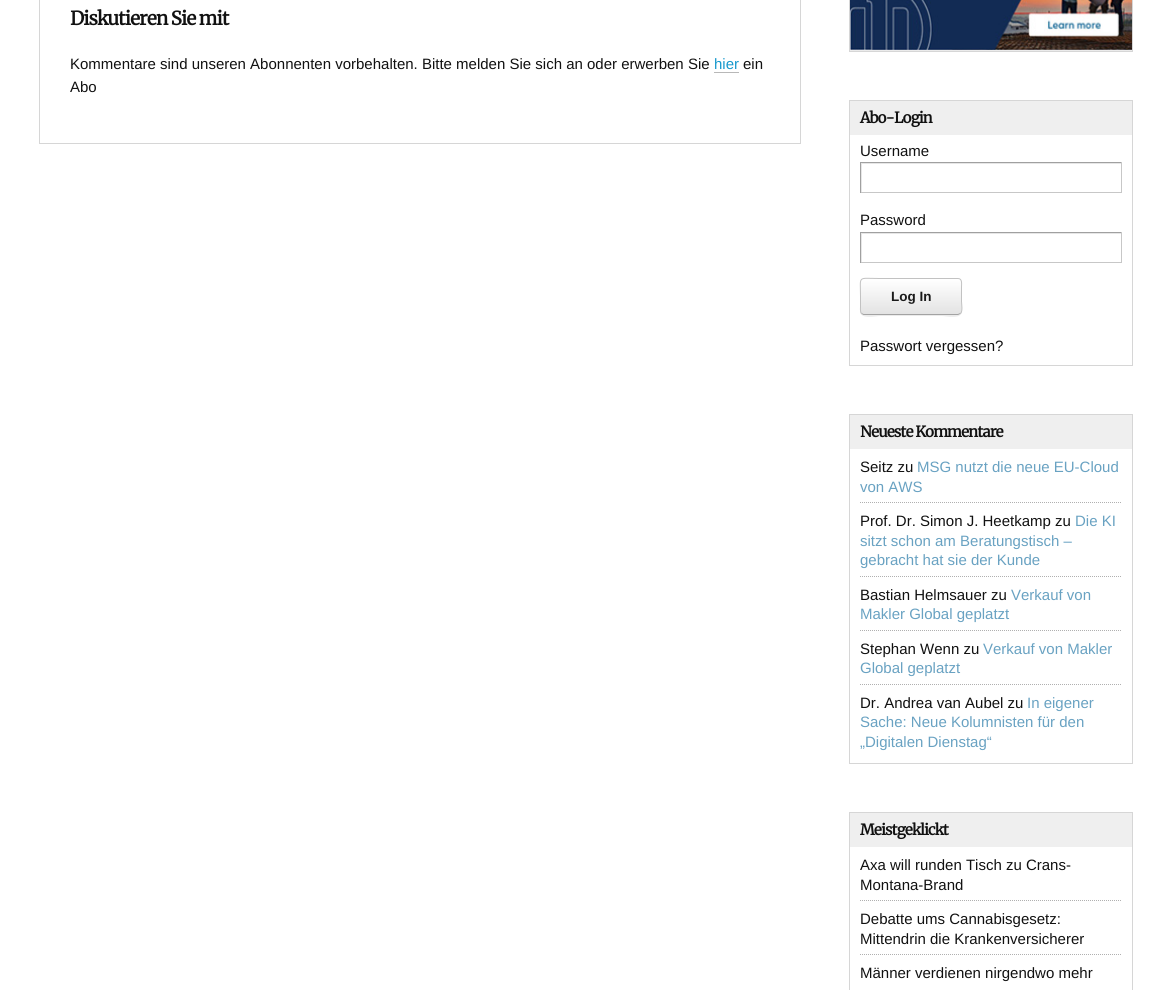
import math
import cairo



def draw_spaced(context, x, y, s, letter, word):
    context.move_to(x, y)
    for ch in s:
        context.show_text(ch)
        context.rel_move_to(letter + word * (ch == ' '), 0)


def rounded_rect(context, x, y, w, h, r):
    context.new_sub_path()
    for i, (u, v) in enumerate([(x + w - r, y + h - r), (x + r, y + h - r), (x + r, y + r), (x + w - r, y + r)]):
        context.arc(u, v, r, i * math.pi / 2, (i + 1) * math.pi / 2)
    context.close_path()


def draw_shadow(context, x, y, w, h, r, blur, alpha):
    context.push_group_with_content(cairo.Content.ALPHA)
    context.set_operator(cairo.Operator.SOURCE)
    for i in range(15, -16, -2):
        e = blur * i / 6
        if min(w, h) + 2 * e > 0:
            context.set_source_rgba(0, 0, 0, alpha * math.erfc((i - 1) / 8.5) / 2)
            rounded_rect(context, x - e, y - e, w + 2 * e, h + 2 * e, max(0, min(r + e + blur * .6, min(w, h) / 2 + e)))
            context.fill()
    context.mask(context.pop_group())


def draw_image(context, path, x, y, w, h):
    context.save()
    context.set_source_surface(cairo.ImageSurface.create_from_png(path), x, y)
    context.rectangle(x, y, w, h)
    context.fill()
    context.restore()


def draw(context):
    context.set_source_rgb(1, 1, 1)
    context.paint()
    context.rectangle(39.5, -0.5, 761, 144)
    context.set_source_rgb(214 / 255, 214 / 255, 214 / 255)
    context.set_line_width(1)
    context.stroke()
    context.set_source_rgb(184 / 255, 184 / 255, 184 / 255)
    context.rectangle(714, 72, 25, 1)
    context.fill()
    context.rectangle(849.5, -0.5, 283, 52)
    context.set_source_rgb(214 / 255, 214 / 255, 214 / 255)
    context.stroke()
    context.save()
    context.rectangle(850, 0, 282, 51)
    context.clip()
    context.set_source_rgb(0, 0, 0)
    draw_shadow(context, 850, -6, 282, 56, 0, 2, 0.2)
    context.restore()
    draw_image(context, "images/1.png", 850, 0, 282, 50)
    context.rectangle(849.5, 100.5, 283, 265)
    context.stroke()
    context.set_source_rgb(239 / 255, 239 / 255, 239 / 255)
    context.rectangle(850, 101, 282, 34)
    context.fill()
    context.save()
    context.rectangle(861, 163, 260, 29)
    context.clip()
    context.set_source_rgb(230 / 255, 230 / 255, 230 / 255)
    context.set_fill_rule(cairo.FillRule.EVEN_ODD)
    context.new_path()
    context.move_to(762, 64)
    context.line_to(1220, 64)
    context.line_to(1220, 291)
    context.line_to(762, 291)
    context.close_path()
    context.move_to(862, 164)
    context.line_to(1122, 164)
    context.line_to(1122, 193)
    context.line_to(862, 193)
    context.close_path()
    context.fill()
    context.restore()
    context.set_source_rgb(160 / 255, 160 / 255, 160 / 255)
    context.rectangle(860, 162, 262, 1)
    context.fill()
    context.set_source_rgb(199 / 255, 199 / 255, 199 / 255)
    context.rectangle(1121, 162, 1, 31)
    context.fill()
    context.rectangle(860, 192, 262, 1)
    context.fill()
    context.set_source_rgb(160 / 255, 160 / 255, 160 / 255)
    context.rectangle(860, 162, 1, 31)
    context.fill()
    context.save()
    context.rectangle(861, 233, 260, 29)
    context.clip()
    context.set_source_rgb(230 / 255, 230 / 255, 230 / 255)
    context.set_fill_rule(cairo.FillRule.EVEN_ODD)
    context.new_path()
    context.move_to(762, 134)
    context.line_to(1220, 134)
    context.line_to(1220, 361)
    context.line_to(762, 361)
    context.close_path()
    context.move_to(862, 234)
    context.line_to(1122, 234)
    context.line_to(1122, 263)
    context.line_to(862, 263)
    context.close_path()
    context.fill()
    context.restore()
    context.rectangle(860, 232, 262, 1)
    context.fill()
    context.set_source_rgb(199 / 255, 199 / 255, 199 / 255)
    context.rectangle(1121, 232, 1, 31)
    context.fill()
    context.rectangle(860, 262, 262, 1)
    context.fill()
    context.set_source_rgb(160 / 255, 160 / 255, 160 / 255)
    context.rectangle(860, 232, 1, 31)
    context.fill()
    context.set_source_rgb(235 / 255, 235 / 255, 235 / 255)
    context.new_path()
    context.move_to(860, 311)
    context.curve_to(860, 320, 876, 316, 880, 316)
    context.line_to(942, 316)
    context.curve_to(946, 316, 962, 320, 962, 311)
    context.curve_to(962, 313, 960, 315, 958, 315)
    context.line_to(864, 315)
    context.curve_to(862, 315, 860, 313, 860, 311)
    context.close_path()
    context.fill()
    context.save()
    rounded_rect(context, 860, 278, 102, 37, 4)
    context.clip()
    gradient = cairo.LinearGradient(911, 279, 911, 314)
    gradient.add_color_stop_rgba(0, 1, 1, 1, 1)
    gradient.add_color_stop_rgba(1, 227 / 255, 227 / 255, 227 / 255, 1)
    context.set_source(gradient)
    context.rectangle(860, 279, 102, 35)
    context.fill()
    gradient = cairo.LinearGradient(911, 314, 911, 349)
    gradient.add_color_stop_rgba(0, 1, 1, 1, 1)
    gradient.add_color_stop_rgba(1, 227 / 255, 227 / 255, 227 / 255, 1)
    context.set_source(gradient)
    context.rectangle(860, 314, 102, 1)
    context.fill()
    context.restore()
    context.new_path()
    context.move_to(960.5, 313.5)
    context.line_to(958, 314.5)
    context.line_to(863.5, 314.5)
    context.line_to(861.5, 313.5)
    context.set_source_rgb(163 / 255, 163 / 255, 163 / 255)
    context.stroke()
    context.new_path()
    context.move_to(861.5, 313.5)
    context.curve_to(860, 311.5, 860.5, 308, 860.5, 306)
    context.line_to(860.5, 296.5)
    context.curve_to(860.5, 275, 857, 278.5, 879.5, 278.5)
    context.line_to(958, 278.5)
    context.curve_to(962.5, 278.5, 961.5, 284, 961.5, 287)
    context.line_to(961.5, 301.5)
    context.curve_to(961.5, 304, 963, 311, 960.5, 313.5)
    context.set_source_rgb(194 / 255, 194 / 255, 194 / 255)
    context.stroke()
    context.rectangle(849.5, 414.5, 283, 349)
    context.set_source_rgb(214 / 255, 214 / 255, 214 / 255)
    context.stroke()
    context.set_source_rgb(239 / 255, 239 / 255, 239 / 255)
    context.rectangle(850, 415, 282, 34)
    context.fill()
    context.new_path()
    context.move_to(860, 502.5)
    context.line_to(1122, 502.5)
    context.set_source_rgb(176 / 255, 176 / 255, 176 / 255)
    context.set_dash([1, 1])
    context.stroke()
    context.new_path()
    context.move_to(860, 576.5)
    context.line_to(1122, 576.5)
    context.stroke()
    context.new_path()
    context.move_to(860, 630.5)
    context.line_to(1122, 630.5)
    context.stroke()
    context.new_path()
    context.move_to(860, 684.5)
    context.line_to(1122, 684.5)
    context.stroke()
    context.rectangle(849.5, 812.5, 283, 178)
    context.set_source_rgb(214 / 255, 214 / 255, 214 / 255)
    context.set_dash([])
    context.stroke()
    context.set_source_rgb(239 / 255, 239 / 255, 239 / 255)
    context.rectangle(850, 813, 282, 34)
    context.fill()
    context.new_path()
    context.move_to(860, 900.5)
    context.line_to(1122, 900.5)
    context.set_source_rgb(176 / 255, 176 / 255, 176 / 255)
    context.set_dash([1, 1])
    context.stroke()
    context.new_path()
    context.move_to(860, 954.5)
    context.line_to(1122, 954.5)
    context.stroke()
    context.select_font_face("Merriweather", cairo.FontSlant.NORMAL, cairo.FontWeight.BOLD)
    context.set_font_size(18.75)
    context.set_source_rgb(17 / 255, 17 / 255, 17 / 255)
    draw_spaced(context, 70, 25, "Diskutieren Sie mit", -1, 0)
    context.select_font_face("Liberation Sans")
    context.set_font_size(15)
    context.move_to(70, 69)
    context.show_text("Kommentare sind unseren Abonnenten vorbehalten. Bitte melden Sie sich an oder erwerben Sie")
    context.set_source_rgb(24 / 255, 153 / 255, 205 / 255)
    context.move_to(714, 69)
    context.show_text("hier")
    context.set_source_rgb(17 / 255, 17 / 255, 17 / 255)
    context.move_to(743, 69)
    context.show_text("ein")
    context.move_to(70, 92)
    context.show_text("Abo")
    context.select_font_face("Merriweather", cairo.FontSlant.NORMAL, cairo.FontWeight.BOLD)
    draw_spaced(context, 860, 123, "Abo-Login", -1, 0)
    context.select_font_face("Liberation Sans")
    context.move_to(860, 156)
    context.show_text("Username")
    context.move_to(860, 225)
    context.show_text("Password")
    context.select_font_face("Liberation Sans", cairo.FontSlant.NORMAL, cairo.FontWeight.BOLD)
    context.set_font_size(13.5)
    context.set_source_rgb(26 / 255, 26 / 255, 26 / 255)
    context.move_to(891, 301)
    context.show_text("Log In")
    context.select_font_face("Liberation Sans")
    context.set_font_size(15)
    context.set_source_rgb(17 / 255, 17 / 255, 17 / 255)
    context.move_to(860, 351)
    context.show_text("Passwort vergessen?")
    context.select_font_face("Merriweather", cairo.FontSlant.NORMAL, cairo.FontWeight.BOLD)
    draw_spaced(context, 860, 437, "Neueste Kommentare", -1, 0)
    context.select_font_face("Liberation Sans")
    context.move_to(860, 472)
    context.show_text("Seitz zu")
    context.set_source_rgb(105 / 255, 162 / 255, 194 / 255)
    context.move_to(917, 472)
    context.show_text("MSG nutzt die neue EU-Cloud")
    context.move_to(860, 492)
    context.show_text("von AWS")
    context.set_source_rgb(17 / 255, 17 / 255, 17 / 255)
    context.move_to(860, 526)
    context.show_text("Prof. Dr. Simon J. Heetkamp zu")
    context.set_source_rgb(105 / 255, 162 / 255, 194 / 255)
    context.move_to(1075, 526)
    context.show_text("Die KI")
    context.move_to(860, 546)
    context.show_text("sitzt schon am Beratungstisch –")
    context.move_to(860, 565)
    context.show_text("gebracht hat sie der Kunde")
    context.set_source_rgb(17 / 255, 17 / 255, 17 / 255)
    context.move_to(860, 600)
    context.show_text("Bastian Helmsauer zu")
    context.set_source_rgb(105 / 255, 162 / 255, 194 / 255)
    context.move_to(1011, 600)
    context.show_text("Verkauf von")
    context.move_to(860, 619)
    context.show_text("Makler Global geplatzt")
    context.set_source_rgb(17 / 255, 17 / 255, 17 / 255)
    context.move_to(860, 654)
    context.show_text("Stephan Wenn zu")
    context.set_source_rgb(105 / 255, 162 / 255, 194 / 255)
    context.move_to(983, 654)
    context.show_text("Verkauf von Makler")
    context.move_to(860, 673)
    context.show_text("Global geplatzt")
    context.set_source_rgb(17 / 255, 17 / 255, 17 / 255)
    context.move_to(860, 708)
    context.show_text("Dr. Andrea van Aubel zu")
    context.set_source_rgb(105 / 255, 162 / 255, 194 / 255)
    context.move_to(1027, 708)
    context.show_text("In eigener")
    context.move_to(860, 727)
    context.show_text("Sache: Neue Kolumnisten für den")
    context.move_to(860, 747)
    context.show_text("„Digitalen Dienstag“")
    context.select_font_face("Merriweather", cairo.FontSlant.NORMAL, cairo.FontWeight.BOLD)
    context.set_source_rgb(17 / 255, 17 / 255, 17 / 255)
    draw_spaced(context, 860, 835, "Meistgeklickt", -1, 0)
    context.select_font_face("Liberation Sans")
    context.move_to(860, 870)
    context.show_text("Axa will runden Tisch zu Crans-")
    context.move_to(860, 890)
    context.show_text("Montana-Brand")
    context.move_to(860, 924)
    context.show_text("Debatte ums Cannabisgesetz:")
    context.move_to(860, 944)
    context.show_text("Mittendrin die Krankenversicherer")
    context.move_to(860, 978)
    context.show_text("Männer verdienen nirgendwo mehr")


surface = cairo.ImageSurface(cairo.Format.RGB24, 1172, 990)
context = cairo.Context(surface)
options = cairo.FontOptions()
options.set_hint_metrics(cairo.HintMetrics.OFF)
options.set_hint_style(cairo.HintStyle.NONE)
context.set_font_options(options)
context.set_miter_limit(4)
draw(context)
surface.write_to_png("out.png")
